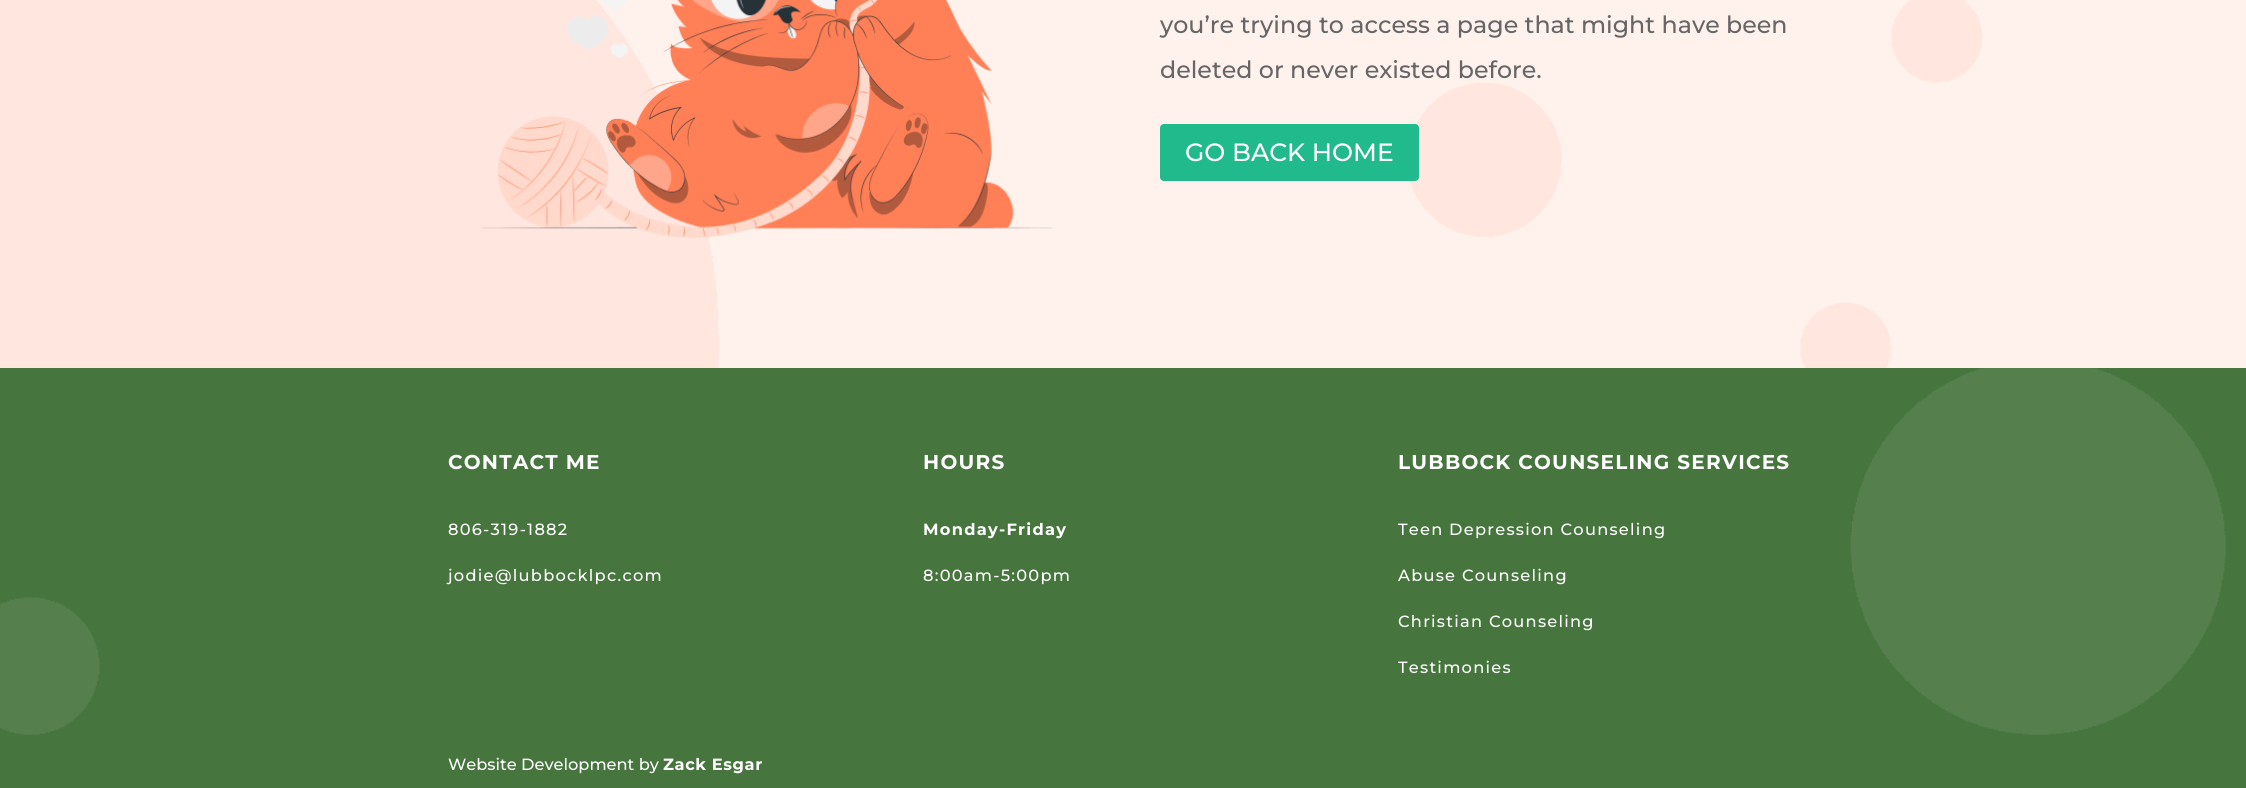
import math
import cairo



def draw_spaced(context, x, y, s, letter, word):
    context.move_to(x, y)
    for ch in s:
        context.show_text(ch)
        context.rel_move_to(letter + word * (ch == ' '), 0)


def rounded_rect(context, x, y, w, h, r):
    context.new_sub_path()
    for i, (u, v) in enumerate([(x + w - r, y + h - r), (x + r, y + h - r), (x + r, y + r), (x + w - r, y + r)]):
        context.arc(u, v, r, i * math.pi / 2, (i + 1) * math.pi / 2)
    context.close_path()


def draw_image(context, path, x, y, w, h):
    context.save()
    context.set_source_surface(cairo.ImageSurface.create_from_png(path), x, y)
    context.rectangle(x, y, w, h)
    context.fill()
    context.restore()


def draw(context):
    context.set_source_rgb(1, 1, 1)
    context.paint()
    draw_image(context, "images/1.png", 0, 0, 2246, 368)
    draw_image(context, "images/2.png", 482, 0, 571, 239)
    context.set_source_rgb(33 / 255, 186 / 255, 140 / 255)
    rounded_rect(context, 1160, 124, 259, 57, 4)
    context.fill()
    context.set_source_rgb(70 / 255, 117 / 255, 62 / 255)
    context.rectangle(0, 368, 2246, 420)
    context.fill()
    draw_image(context, "images/3.png", 0, 368, 2226, 367)
    context.select_font_face("Montserrat Thin")
    context.set_font_size(23.75)
    context.set_source_rgb(102 / 255, 102 / 255, 102 / 255)
    context.move_to(1160, 33)
    context.show_text("you’re trying to access a page that might have been")
    context.move_to(1160, 78)
    context.show_text("deleted or never existed before.")
    context.set_font_size(25)
    context.set_source_rgb(1, 1, 1)
    context.move_to(1185, 161)
    context.show_text("GO BACK HOME")
    context.select_font_face("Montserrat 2 Thin")
    context.set_font_size(20)
    draw_spaced(context, 448, 469, "CONTACT ME", 1.25, 0)
    context.select_font_face("Montserrat Thin")
    context.set_font_size(16.25)
    draw_spaced(context, 448, 535, "806-319-1882", 1.25, 0)
    draw_spaced(context, 448, 581, "jodie@lubbocklpc.com", 1.25, 0)
    context.select_font_face("Montserrat 2 Thin")
    context.set_font_size(20)
    draw_spaced(context, 923, 469, "HOURS", 1.25, 0)
    context.set_font_size(16.25)
    draw_spaced(context, 923, 535, "Monday-Friday", 1.25, 0)
    context.select_font_face("Montserrat Thin")
    draw_spaced(context, 923, 581, "8:00am-5:00pm", 1.25, 0)
    context.select_font_face("Montserrat 2 Thin")
    context.set_font_size(20)
    draw_spaced(context, 1398, 469, "LUBBOCK COUNSELING SERVICES", 1.25, 0)
    context.select_font_face("Montserrat Thin")
    context.set_font_size(16.25)
    draw_spaced(context, 1398, 535, "Teen Depression Counseling", 1.25, 0)
    draw_spaced(context, 1398, 581, "Abuse Counseling", 1.25, 0)
    draw_spaced(context, 1398, 627, "Christian Counseling", 1.25, 0)
    draw_spaced(context, 1398, 673, "Testimonies", 1.25, 0)
    context.move_to(448, 770)
    context.show_text("Website Development by")
    context.select_font_face("Montserrat 2 Thin")
    draw_spaced(context, 663, 770, "Zack Esgar", 0.6, 0)


surface = cairo.ImageSurface(cairo.Format.RGB24, 2246, 788)
context = cairo.Context(surface)
options = cairo.FontOptions()
options.set_hint_metrics(cairo.HintMetrics.OFF)
options.set_hint_style(cairo.HintStyle.NONE)
context.set_font_options(options)
context.set_miter_limit(4)
draw(context)
surface.write_to_png("out.png")
